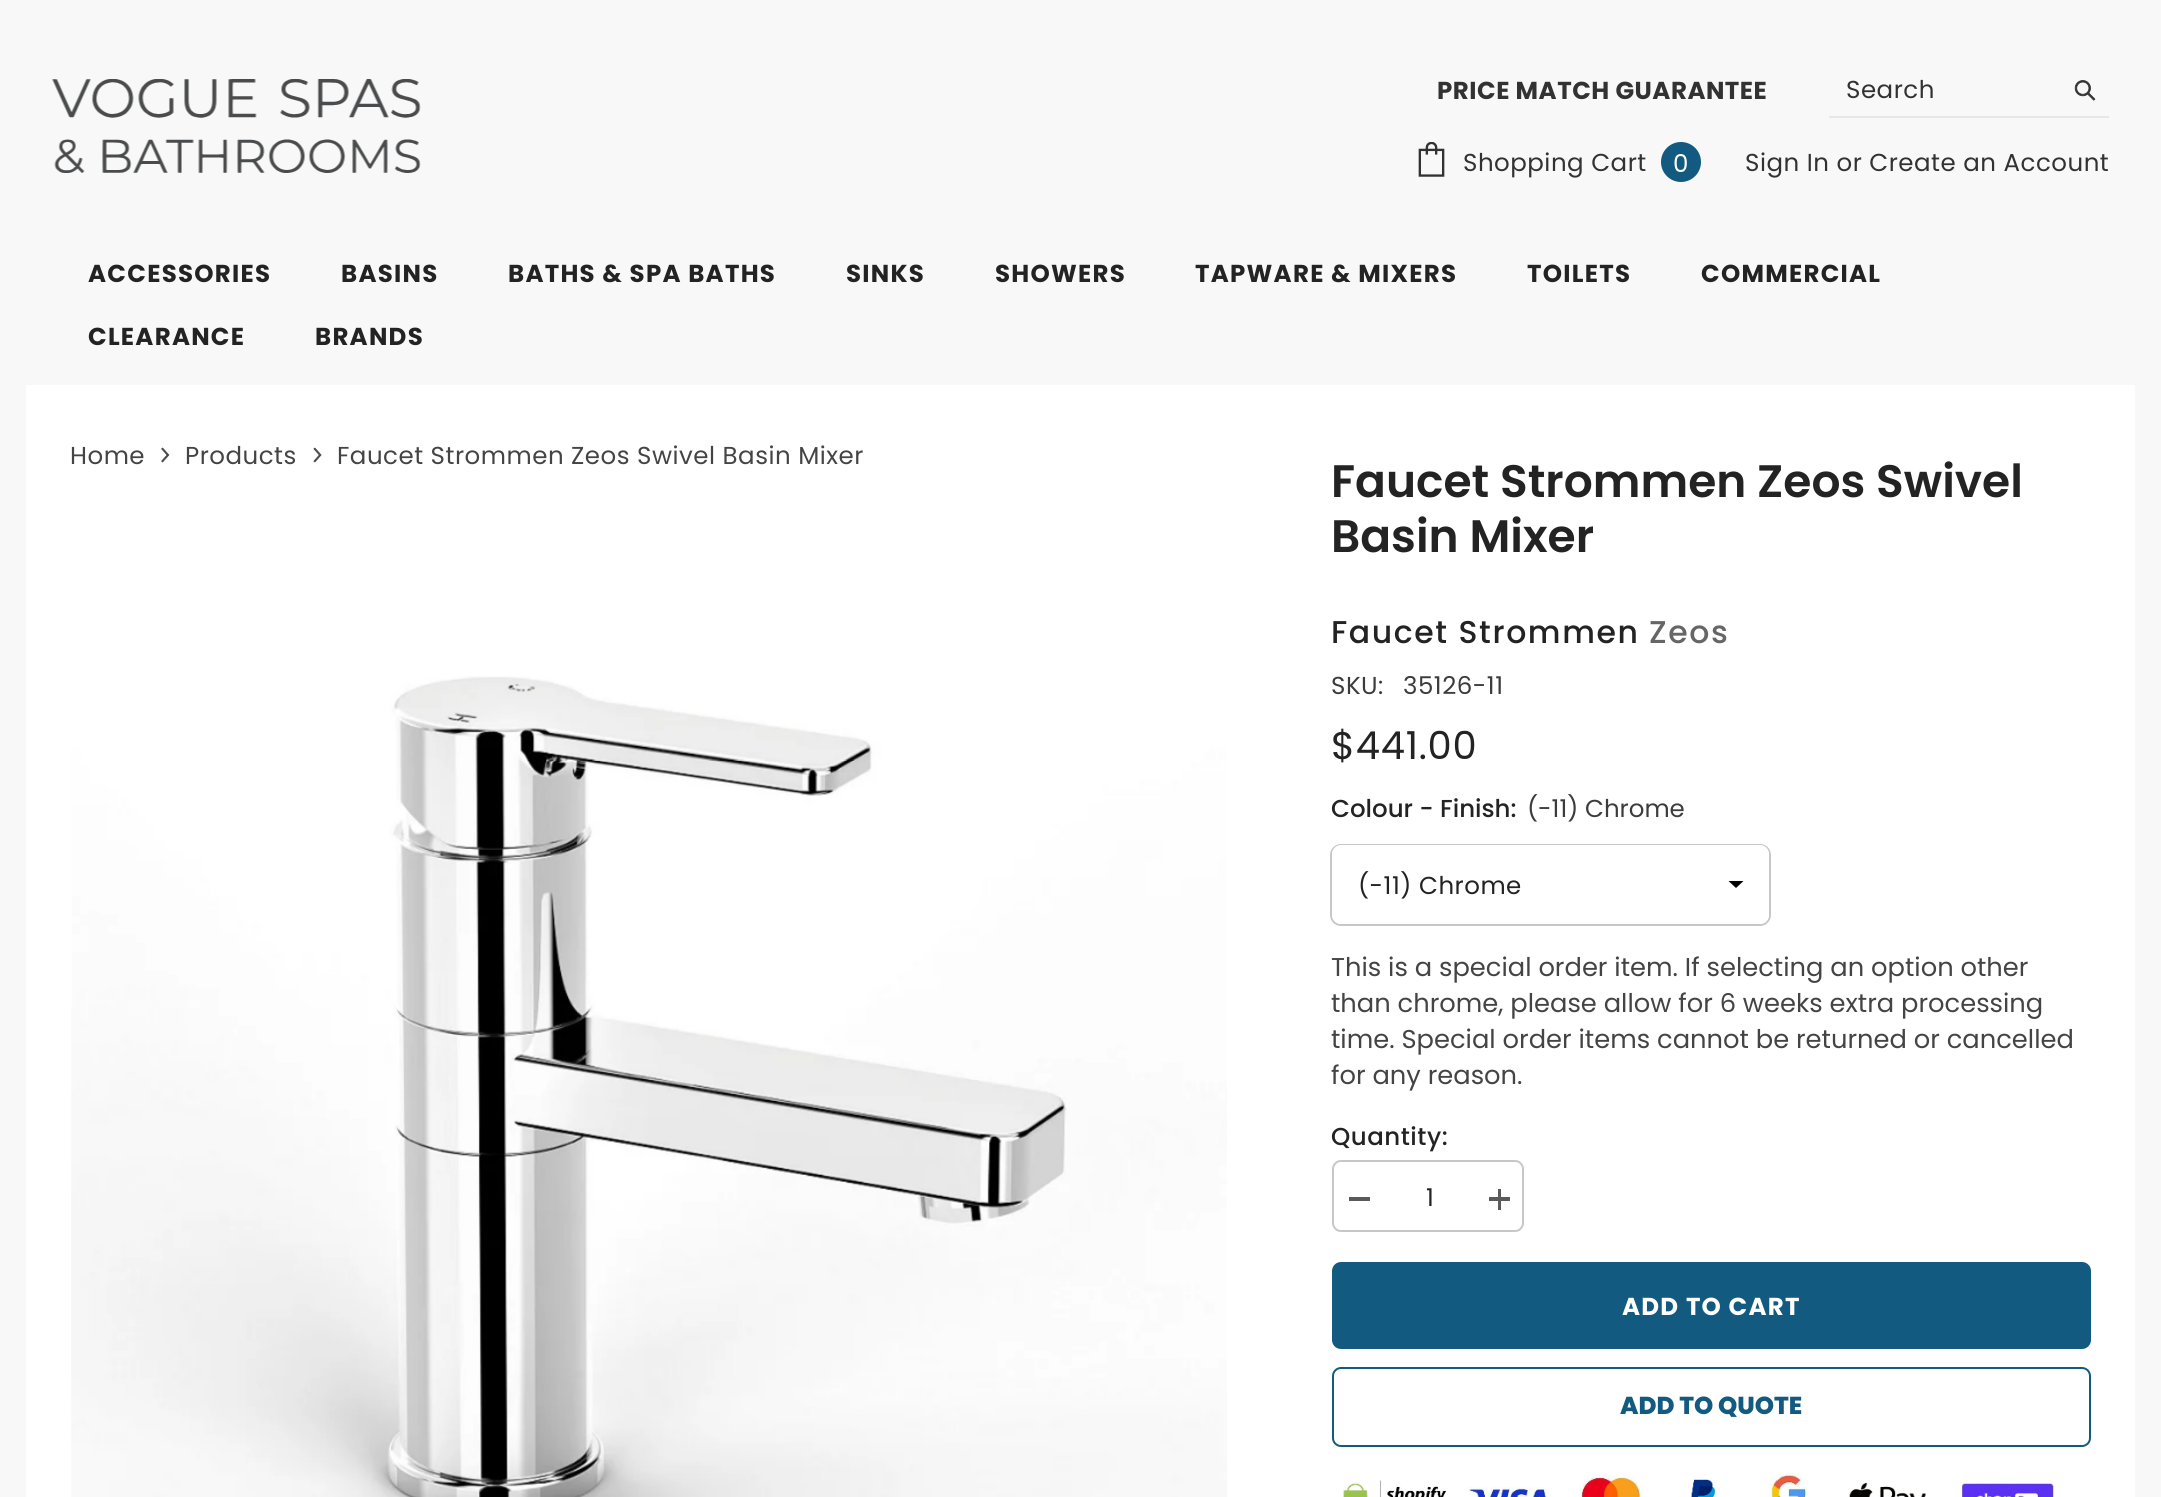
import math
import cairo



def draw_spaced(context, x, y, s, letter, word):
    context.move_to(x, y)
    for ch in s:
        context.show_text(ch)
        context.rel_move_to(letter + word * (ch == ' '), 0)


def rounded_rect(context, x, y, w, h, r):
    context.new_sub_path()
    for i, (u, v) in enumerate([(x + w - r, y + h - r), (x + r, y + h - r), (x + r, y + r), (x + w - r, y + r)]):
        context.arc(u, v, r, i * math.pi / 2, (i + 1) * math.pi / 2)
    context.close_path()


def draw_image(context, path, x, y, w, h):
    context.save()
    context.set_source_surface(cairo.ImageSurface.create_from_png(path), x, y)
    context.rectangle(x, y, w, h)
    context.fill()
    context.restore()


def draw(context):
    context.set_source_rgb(248 / 255, 248 / 255, 248 / 255)
    context.paint()
    draw_image(context, "images/1.png", 52, 79, 369, 94)
    context.set_source_rgb(231 / 255, 231 / 255, 231 / 255)
    context.rectangle(1829, 116, 280, 2)
    context.fill()
    draw_image(context, "images/2.png", 2074, 80, 22, 21)
    draw_image(context, "images/3.png", 1418, 142, 27, 35)
    context.set_source_rgb(19 / 255, 90 / 255, 129 / 255)
    context.arc(1681, 162, 20, 0, 2 * math.pi)
    context.fill()
    context.set_source_rgb(1, 1, 1)
    context.rectangle(26, 385, 2109, 1112)
    context.fill()
    draw_image(context, "images/4.png", 161, 447, 9, 16)
    draw_image(context, "images/5.png", 313, 447, 9, 16)
    draw_image(context, "images/6.png", 71, 676, 1156, 821)
    rounded_rect(context, 1331, 845, 439, 80, 10)
    context.set_source_rgb(199 / 255, 199 / 255, 199 / 255)
    context.stroke()
    context.set_source_rgb(1, 1, 1)
    rounded_rect(context, 1332, 845, 437, 79, 9)
    context.fill()
    context.set_source_rgb(0, 0, 0)
    context.new_path()
    context.move_to(1728.5, 881)
    context.line_to(1736, 888)
    context.line_to(1743.5, 881)
    context.close_path()
    context.fill()
    rounded_rect(context, 1333, 1161, 190, 70, 8)
    context.set_source_rgb(199 / 255, 199 / 255, 199 / 255)
    context.stroke()
    context.set_source_rgb(90 / 255, 90 / 255, 90 / 255)
    context.rectangle(1349, 1197, 21, 4)
    context.fill()
    context.rectangle(1489, 1197, 21, 4)
    context.fill()
    context.rectangle(1498, 1189, 3, 21)
    context.fill()
    context.set_source_rgb(19 / 255, 90 / 255, 129 / 255)
    rounded_rect(context, 1333, 1263, 757, 85, 8)
    context.fill_preserve()
    context.stroke()
    rounded_rect(context, 1333, 1368, 757, 78, 8)
    context.stroke()
    draw_image(context, "images/7.png", 1342, 1473, 712, 24)
    context.select_font_face("Poppins", cairo.FontSlant.NORMAL, cairo.FontWeight.BOLD)
    context.set_font_size(24.5)
    context.set_source_rgb(50 / 255, 50 / 255, 50 / 255)
    draw_spaced(context, 1437, 99, "PRICE MATCH GUARANTEE", 0.5, 0)
    context.select_font_face("Poppins")
    draw_spaced(context, 1846, 98, "Search", 0.5, 0)
    draw_spaced(context, 1463, 171, "Shopping Cart", 0.5, 0)
    context.set_source_rgb(1, 1, 1)
    context.move_to(1673, 172)
    context.show_text("0")
    context.set_source_rgb(50 / 255, 50 / 255, 50 / 255)
    draw_spaced(context, 1745, 171, "Sign In or Create an Account", 0.5, 0)
    context.select_font_face("Poppins", cairo.FontSlant.NORMAL, cairo.FontWeight.BOLD)
    context.set_source_rgb(35 / 255, 35 / 255, 35 / 255)
    draw_spaced(context, 88, 282, "ACCESSORIES", 1.25, 0)
    draw_spaced(context, 341, 282, "BASINS", 1.25, 0)
    draw_spaced(context, 508, 282, "BATHS & SPA BATHS", 1.25, 0)
    draw_spaced(context, 846, 282, "SINKS", 1.25, 0)
    draw_spaced(context, 995, 282, "SHOWERS", 1.25, 0)
    draw_spaced(context, 1195, 282, "TAPWARE & MIXERS", 1.25, 0)
    draw_spaced(context, 1527, 282, "TOILETS", 1.25, 0)
    draw_spaced(context, 1701, 282, "COMMERCIAL", 1.25, 0)
    draw_spaced(context, 88, 345, "CLEARANCE", 1.25, 0)
    draw_spaced(context, 315, 345, "BRANDS", 1.25, 0)
    context.select_font_face("Poppins")
    context.set_source_rgb(68 / 255, 68 / 255, 68 / 255)
    draw_spaced(context, 70, 464, "Home", 0.5, 0)
    draw_spaced(context, 185, 464, "Products", 0.5, 0)
    draw_spaced(context, 337, 464, "Faucet Strommen Zeos Swivel Basin Mixer", 0.5, 0)
    context.select_font_face("Poppins SemiBold")
    context.set_font_size(45.5)
    context.set_source_rgb(35 / 255, 35 / 255, 35 / 255)
    context.move_to(1331, 497)
    context.show_text("Faucet Strommen Zeos Swivel")
    context.move_to(1331, 552)
    context.show_text("Basin Mixer")
    context.select_font_face("Poppins Medium")
    context.set_font_size(31.5)
    draw_spaced(context, 1331, 643, "Faucet Strommen", 1.6, 0)
    context.set_source_rgb(102 / 255, 102 / 255, 102 / 255)
    draw_spaced(context, 1649, 643, "Zeos", 1.6, 0)
    context.select_font_face("Poppins")
    context.set_font_size(24.5)
    context.set_source_rgb(60 / 255, 60 / 255, 60 / 255)
    draw_spaced(context, 1331, 694, "SKU:", 0.5, 0)
    draw_spaced(context, 1403, 694, "35126-11", 0.5, 0)
    context.set_font_size(38.5)
    context.set_source_rgb(35 / 255, 35 / 255, 35 / 255)
    draw_spaced(context, 1331, 759, "$441.00", 0.75, 0)
    context.select_font_face("Poppins Medium")
    context.set_font_size(24.5)
    context.move_to(1331, 817)
    context.show_text("Colour - Finish:")
    context.select_font_face("Poppins")
    context.set_source_rgb(60 / 255, 60 / 255, 60 / 255)
    context.move_to(1527, 817)
    context.show_text("(-11) Chrome")
    context.set_source_rgb(35 / 255, 35 / 255, 35 / 255)
    draw_spaced(context, 1358, 894, "(-11) Chrome", 0.5, 0)
    context.set_font_size(25.75)
    context.set_source_rgb(68 / 255, 68 / 255, 68 / 255)
    context.move_to(1331, 976)
    context.show_text("This is a special order item. If selecting an option other")
    context.move_to(1331, 1012)
    context.show_text("than chrome, please allow for 6 weeks extra processing")
    context.move_to(1331, 1048)
    context.show_text("time. Special order items cannot be returned or cancelled")
    context.move_to(1331, 1084)
    context.show_text("for any reason.")
    context.select_font_face("Poppins Medium")
    context.set_font_size(24.5)
    context.set_source_rgb(35 / 255, 35 / 255, 35 / 255)
    draw_spaced(context, 1331, 1145, "Quantity:", 0.5, 0)
    context.select_font_face("Poppins")
    draw_spaced(context, 1426, 1206, "1", 0.5, 0)
    context.select_font_face("Poppins", cairo.FontSlant.NORMAL, cairo.FontWeight.BOLD)
    context.set_source_rgb(1, 1, 1)
    draw_spaced(context, 1622, 1315, "ADD TO CART", 1.25, 0)
    context.select_font_face("Poppins ExtraBold")
    context.set_source_rgb(19 / 255, 90 / 255, 129 / 255)
    context.move_to(1620, 1414)
    context.show_text("ADD TO QUOTE")


surface = cairo.ImageSurface(cairo.Format.RGB24, 2161, 1497)
context = cairo.Context(surface)
options = cairo.FontOptions()
options.set_hint_metrics(cairo.HintMetrics.OFF)
options.set_hint_style(cairo.HintStyle.NONE)
context.set_font_options(options)
context.set_miter_limit(4)
draw(context)
surface.write_to_png("out.png")
